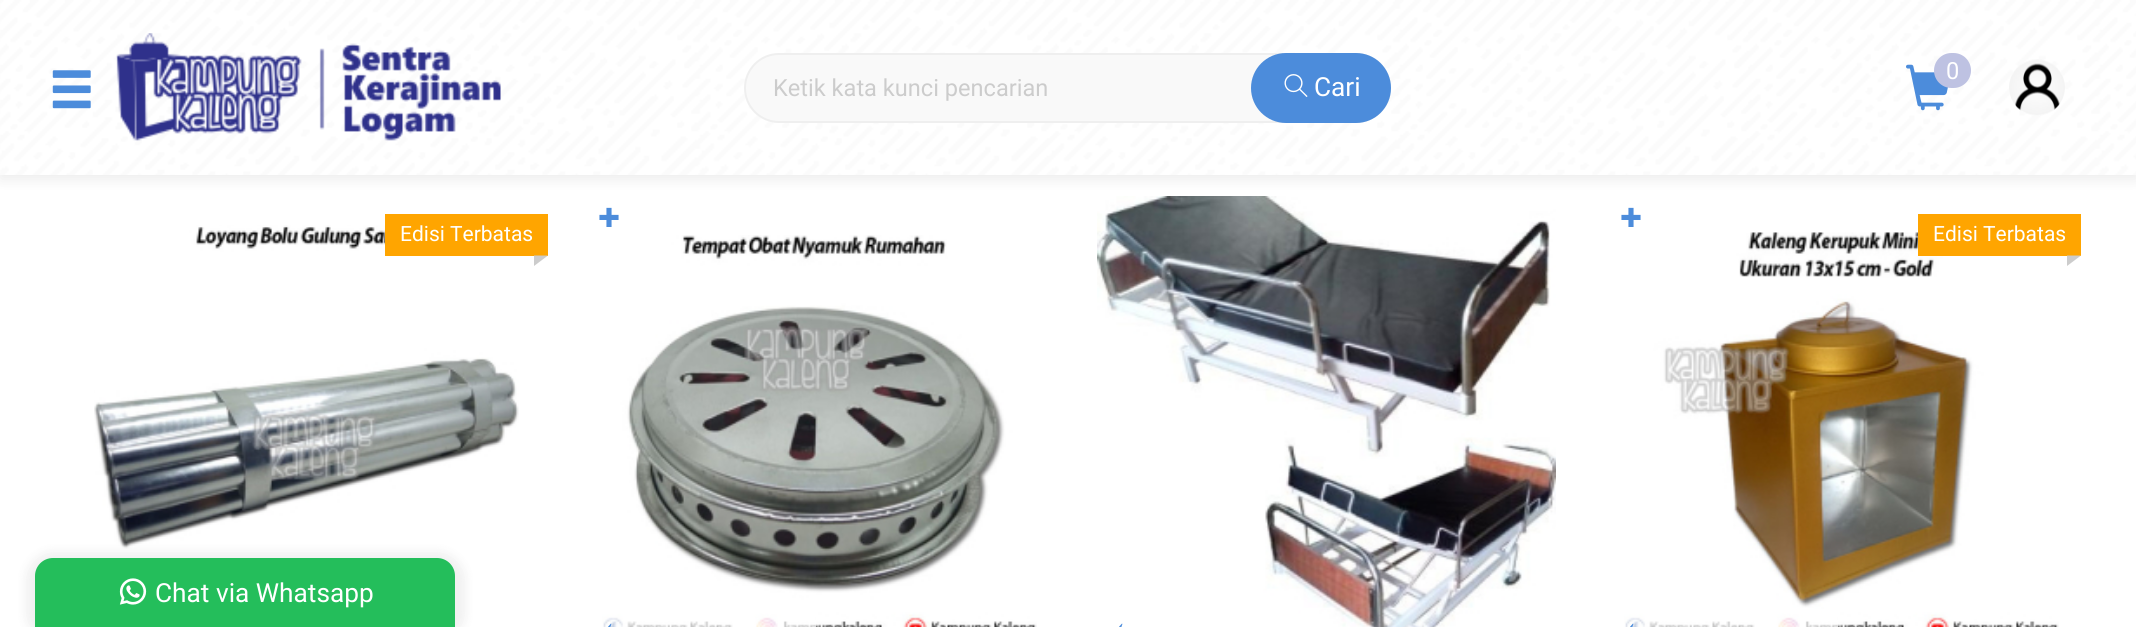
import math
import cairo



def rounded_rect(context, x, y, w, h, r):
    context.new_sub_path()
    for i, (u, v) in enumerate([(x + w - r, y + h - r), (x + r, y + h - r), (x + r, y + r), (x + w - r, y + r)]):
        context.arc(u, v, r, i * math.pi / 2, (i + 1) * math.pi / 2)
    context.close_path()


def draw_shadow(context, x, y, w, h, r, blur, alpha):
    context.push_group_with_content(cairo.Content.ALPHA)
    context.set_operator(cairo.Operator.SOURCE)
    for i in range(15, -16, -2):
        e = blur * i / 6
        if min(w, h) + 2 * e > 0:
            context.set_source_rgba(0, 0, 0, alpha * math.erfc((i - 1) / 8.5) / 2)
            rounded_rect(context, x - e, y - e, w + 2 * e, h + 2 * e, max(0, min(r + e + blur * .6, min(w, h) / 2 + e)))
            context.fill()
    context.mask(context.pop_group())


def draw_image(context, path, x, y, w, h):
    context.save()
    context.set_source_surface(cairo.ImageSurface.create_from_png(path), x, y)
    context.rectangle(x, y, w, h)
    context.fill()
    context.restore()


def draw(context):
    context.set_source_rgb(1, 1, 1)
    context.paint()
    draw_image(context, "images/10.png", 1097, 196, 459, 431)
    context.set_source_rgb(0, 0, 0)
    draw_shadow(context, 0, -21, 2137, 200, 0, 7, 0.08)
    draw_image(context, "images/1.png", 0, 0, 2136, 175)
    draw_image(context, "images/2.png", 52, 70, 39, 39)
    draw_image(context, "images/3.png", 116, 33, 385, 108)
    draw_image(context, "images/4.png", 1906, 64, 42, 47)
    context.set_source_rgb(190 / 255, 194 / 255, 226 / 255)
    rounded_rect(context, 1934, 53, 37, 35, 17.5)
    context.fill()
    context.set_source_rgb(1, 1, 1)
    context.arc(2037, 88, 28, 0, 2 * math.pi)
    context.fill()
    draw_image(context, "images/5.png", 2009, 59, 56, 57)
    context.set_source_rgb(249 / 255, 249 / 255, 249 / 255)
    rounded_rect(context, 745, 54, 645, 68, 34)
    context.fill_preserve()
    context.set_source_rgb(239 / 255, 239 / 255, 239 / 255)
    context.stroke()
    context.set_source_rgb(76 / 255, 140 / 255, 219 / 255)
    rounded_rect(context, 1251, 53, 140, 70, 35)
    context.fill()
    draw_image(context, "images/6.png", 1284, 74, 24, 23)
    draw_image(context, "images/7.png", 94, 225, 425, 324)
    context.set_source_rgb(1, 165 / 255, 0)
    context.rectangle(385, 214, 163, 42)
    context.fill()
    context.set_source_rgb(204 / 255, 204 / 255, 204 / 255)
    context.new_path()
    context.move_to(534, 266)
    context.line_to(534, 255.5)
    context.line_to(548, 255.5)
    context.close_path()
    context.fill()
    draw_image(context, "images/8.png", 602, 235, 435, 392)
    context.set_source_rgba(1, 1, 1, 0.69)
    context.new_path()
    context.move_to(586, 609)
    context.line_to(802, 609)
    context.curve_to(809.5, 609, 816, 615.5, 816, 623)
    context.line_to(816, 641)
    context.line_to(586, 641)
    context.close_path()
    context.fill()
    draw_image(context, "images/9.png", 608, 623, 4, 4)
    draw_image(context, "images/11.png", 1119, 623, 4, 4)
    draw_image(context, "images/12.png", 1624, 232, 435, 395)
    context.set_source_rgb(1, 165 / 255, 0)
    context.rectangle(1918, 214, 163, 42)
    context.fill()
    context.set_source_rgb(204 / 255, 204 / 255, 204 / 255)
    context.new_path()
    context.move_to(2067, 266)
    context.line_to(2067, 255.5)
    context.line_to(2081, 255.5)
    context.close_path()
    context.fill()
    context.set_source_rgba(1, 1, 1, 0.69)
    context.new_path()
    context.move_to(1608, 609)
    context.line_to(1824, 609)
    context.curve_to(1831.5, 609, 1838, 615.5, 1838, 623)
    context.line_to(1838, 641)
    context.line_to(1608, 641)
    context.close_path()
    context.fill()
    draw_image(context, "images/9.png", 1630, 623, 4, 4)
    context.set_source_rgb(51 / 255, 51 / 255, 51 / 255)
    draw_shadow(context, 25, 551, 441, 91, 28, 5, 0.07)
    context.set_source_rgb(36 / 255, 190 / 255, 91 / 255)
    context.new_path()
    context.move_to(53, 558)
    context.line_to(437, 558)
    context.curve_to(447, 558, 455, 566, 455, 576)
    context.line_to(455, 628)
    context.line_to(35, 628)
    context.line_to(35, 576)
    context.curve_to(35, 566, 43, 558, 53, 558)
    context.close_path()
    context.fill()
    draw_image(context, "images/13.png", 119, 578, 28, 27)
    context.select_font_face("Roboto")
    context.set_font_size(23.6)
    context.set_source_rgb(1, 1, 1)
    context.move_to(1946, 79)
    context.show_text("0")
    context.set_source_rgb(204 / 255, 204 / 255, 204 / 255)
    context.move_to(773, 96)
    context.show_text("Ketik kata kunci pencarian")
    context.set_font_size(26.25)
    context.set_source_rgb(1, 1, 1)
    context.move_to(1314, 96)
    context.show_text("Cari")
    context.set_font_size(21)
    context.move_to(400, 241)
    context.show_text("Edisi Terbatas")
    context.select_font_face("DejaVu Sans")
    context.set_font_size(26.25)
    context.set_source_rgb(76 / 255, 140 / 255, 219 / 255)
    context.move_to(598, 227)
    context.show_text("✚")
    context.move_to(1620, 227)
    context.show_text("✚")
    context.select_font_face("Roboto")
    context.set_font_size(21)
    context.set_source_rgb(1, 1, 1)
    context.move_to(1933, 241)
    context.show_text("Edisi Terbatas")
    context.set_font_size(26.25)
    context.move_to(155, 602)
    context.show_text("Chat via Whatsapp")


surface = cairo.ImageSurface(cairo.Format.RGB24, 2136, 627)
context = cairo.Context(surface)
options = cairo.FontOptions()
options.set_hint_metrics(cairo.HintMetrics.OFF)
options.set_hint_style(cairo.HintStyle.NONE)
context.set_font_options(options)
context.set_miter_limit(4)
draw(context)
surface.write_to_png("out.png")
